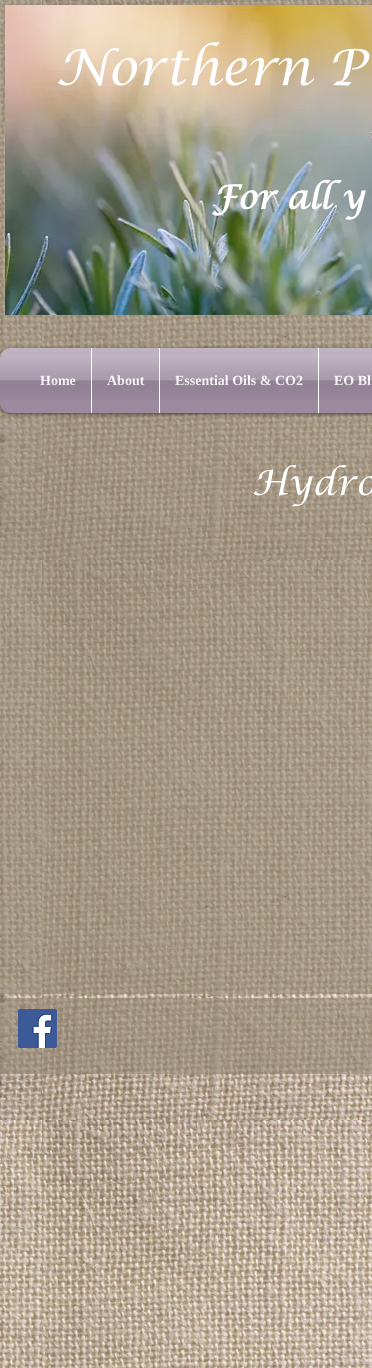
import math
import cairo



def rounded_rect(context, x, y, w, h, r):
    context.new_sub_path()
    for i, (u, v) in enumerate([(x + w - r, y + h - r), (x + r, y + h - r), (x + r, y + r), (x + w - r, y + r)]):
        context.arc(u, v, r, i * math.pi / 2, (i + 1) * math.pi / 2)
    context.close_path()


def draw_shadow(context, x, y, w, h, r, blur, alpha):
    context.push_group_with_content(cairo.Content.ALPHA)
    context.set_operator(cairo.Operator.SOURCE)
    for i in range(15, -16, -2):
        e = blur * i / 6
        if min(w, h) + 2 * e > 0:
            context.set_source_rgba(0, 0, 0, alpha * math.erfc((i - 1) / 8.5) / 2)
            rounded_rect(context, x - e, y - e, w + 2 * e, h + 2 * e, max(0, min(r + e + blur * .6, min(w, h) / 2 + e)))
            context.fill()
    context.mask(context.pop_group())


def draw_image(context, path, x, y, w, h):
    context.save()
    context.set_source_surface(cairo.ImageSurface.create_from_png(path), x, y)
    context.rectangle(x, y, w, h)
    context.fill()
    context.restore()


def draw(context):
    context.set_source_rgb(1, 1, 1)
    context.paint()
    draw_image(context, "images/1.png", 0, 0, 372, 1368)
    context.set_source_rgba(147 / 255, 136 / 255, 116 / 255, 0.6)
    context.rectangle(0, 0, 372, 431)
    context.fill()
    draw_image(context, "images/2.png", 5, 5, 367, 310)
    context.set_source_rgb(0, 0, 0)
    draw_shadow(context, 0, 349, 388, 65, 10, 2, 0.6)
    context.set_source_rgb(156 / 255, 138 / 255, 159 / 255)
    rounded_rect(context, 0, 348, 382, 65, 10)
    context.fill()
    draw_image(context, "images/3.png", 0, 348, 25, 52)
    context.set_source_rgb(1, 1, 1)
    context.rectangle(91, 348, 1, 65)
    context.fill()
    context.rectangle(159, 348, 1, 65)
    context.fill()
    context.rectangle(318, 348, 1, 65)
    context.fill()
    context.set_source_rgba(147 / 255, 136 / 255, 116 / 255, 0.6)
    context.rectangle(0, 431, 372, 563)
    context.fill()
    context.rectangle(0, 998, 372, 76)
    context.fill()
    draw_image(context, "images/8.png", 18, 1009, 39, 39)
    context.select_font_face("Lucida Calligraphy")
    context.set_font_size(50)
    context.set_source_rgb(1, 1, 1)
    context.move_to(56, 85)
    context.show_text("Northern P")
    context.select_font_face("Lucida Calligraphy", cairo.FontSlant.NORMAL, cairo.FontWeight.BOLD)
    context.set_font_size(33)
    context.move_to(212, 209)
    context.show_text("For all y")
    context.select_font_face("Liberation Serif", cairo.FontSlant.NORMAL, cairo.FontWeight.BOLD)
    context.set_font_size(14)
    context.move_to(40, 385)
    context.show_text("Home")
    draw_image(context, "images/4.png", 25, 348, 66, 52)
    context.move_to(107, 385)
    context.show_text("About")
    draw_image(context, "images/5.png", 92, 348, 67, 52)
    context.move_to(175, 385)
    context.show_text("Essential Oils & CO2")
    draw_image(context, "images/6.png", 160, 348, 158, 52)
    context.move_to(334, 385)
    context.show_text("EO Bl")
    draw_image(context, "images/7.png", 319, 348, 53, 52)
    context.select_font_face("Lucida Calligraphy")
    context.set_font_size(35)
    context.move_to(252, 495)
    context.show_text("Hydro")


surface = cairo.ImageSurface(cairo.Format.RGB24, 372, 1368)
context = cairo.Context(surface)
options = cairo.FontOptions()
options.set_hint_metrics(cairo.HintMetrics.OFF)
options.set_hint_style(cairo.HintStyle.NONE)
context.set_font_options(options)
context.set_miter_limit(4)
draw(context)
surface.write_to_png("out.png")
